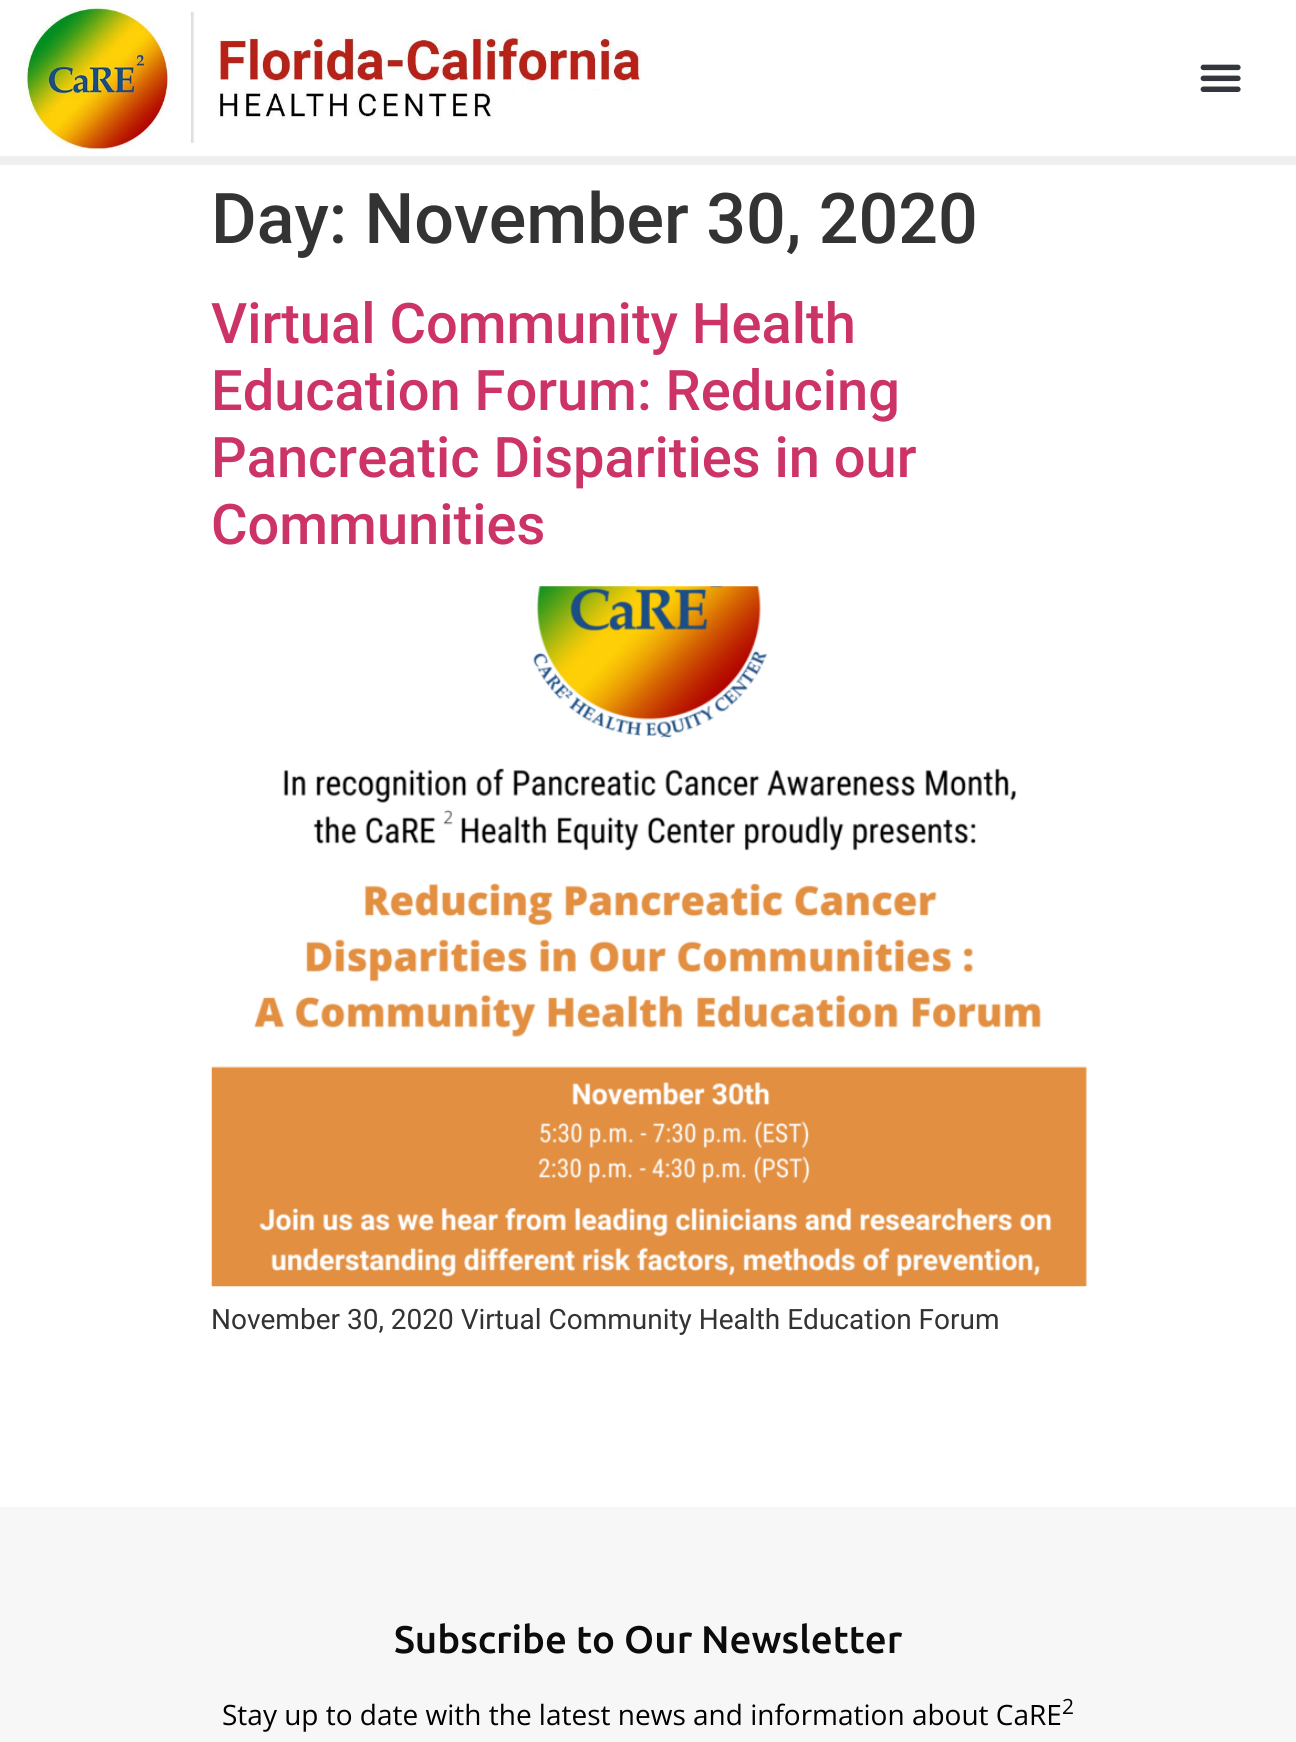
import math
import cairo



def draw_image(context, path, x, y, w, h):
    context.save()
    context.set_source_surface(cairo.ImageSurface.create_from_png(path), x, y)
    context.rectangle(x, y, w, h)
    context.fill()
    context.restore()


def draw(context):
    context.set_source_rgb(1, 1, 1)
    context.paint()
    context.set_source_rgb(239 / 255, 239 / 255, 239 / 255)
    context.rectangle(0, 156, 1296, 9)
    context.fill()
    draw_image(context, "images/1.png", 26, 1, 615, 149)
    draw_image(context, "images/2.png", 1200, 64, 41, 28)
    draw_image(context, "images/3.png", 211, 586, 876, 701)
    context.set_source_rgb(247 / 255, 247 / 255, 247 / 255)
    context.rectangle(0, 1507, 1296, 235)
    context.fill()
    context.select_font_face("Roboto Medium")
    context.set_font_size(70)
    context.set_source_rgb(51 / 255, 51 / 255, 51 / 255)
    context.move_to(211, 243)
    context.show_text("Day: November 30, 2020")
    context.set_font_size(56)
    context.set_source_rgb(204 / 255, 51 / 255, 102 / 255)
    context.move_to(211, 343)
    context.show_text("Virtual Community Health")
    context.move_to(211, 410)
    context.show_text("Education Forum: Reducing")
    context.move_to(211, 477)
    context.show_text("Pancreatic Disparities in our")
    context.move_to(211, 544)
    context.show_text("Communities")
    context.select_font_face("Roboto")
    context.set_font_size(28)
    context.set_source_rgb(51 / 255, 51 / 255, 51 / 255)
    context.move_to(211, 1329)
    context.show_text("November 30, 2020 Virtual Community Health Education Forum")
    context.select_font_face("Ubuntu Medium")
    context.set_font_size(38.5)
    context.set_source_rgb(12 / 255, 12 / 255, 12 / 255)
    context.move_to(394, 1653)
    context.show_text("Subscribe to Our Newsletter")
    context.select_font_face("Open Sans")
    context.set_font_size(28)
    context.set_source_rgb(0, 0, 0)
    context.move_to(222, 1725)
    context.show_text("Stay up to date with the latest news and information about CaRE")
    context.set_font_size(21)
    context.move_to(1062, 1714)
    context.show_text("2")


surface = cairo.ImageSurface(cairo.Format.RGB24, 1296, 1742)
context = cairo.Context(surface)
options = cairo.FontOptions()
options.set_hint_metrics(cairo.HintMetrics.OFF)
options.set_hint_style(cairo.HintStyle.NONE)
context.set_font_options(options)
context.set_miter_limit(4)
draw(context)
surface.write_to_png("out.png")
